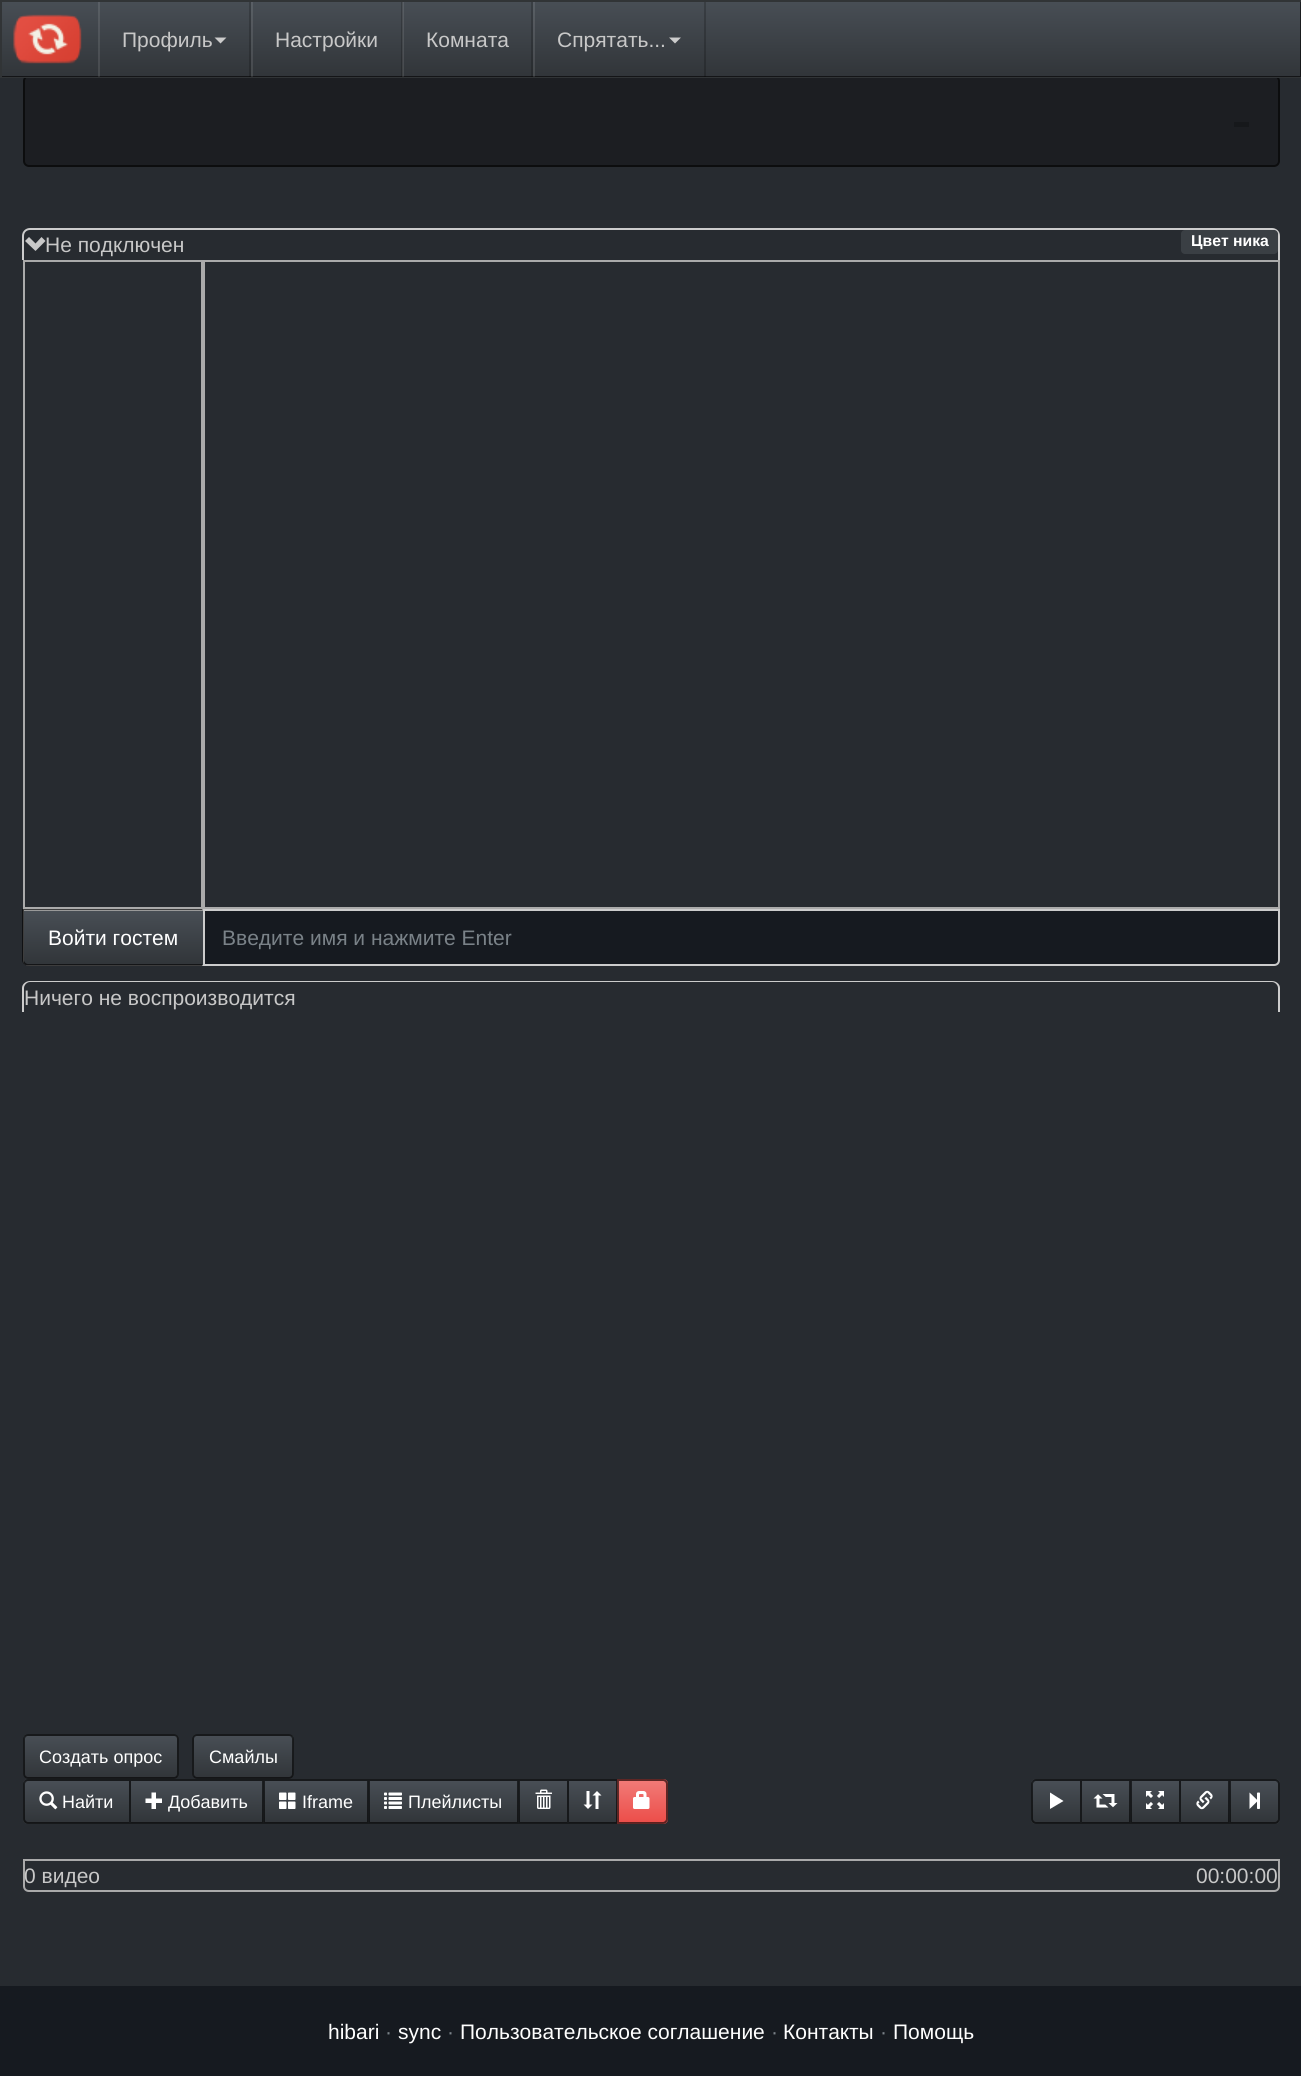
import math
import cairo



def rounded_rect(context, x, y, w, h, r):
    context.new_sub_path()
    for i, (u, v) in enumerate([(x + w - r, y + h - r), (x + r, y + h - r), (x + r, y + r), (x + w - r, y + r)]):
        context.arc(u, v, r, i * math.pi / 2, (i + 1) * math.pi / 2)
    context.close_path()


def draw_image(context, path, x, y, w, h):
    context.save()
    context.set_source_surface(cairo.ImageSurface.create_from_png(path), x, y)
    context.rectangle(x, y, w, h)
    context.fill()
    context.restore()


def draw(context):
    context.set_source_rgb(39 / 255, 43 / 255, 48 / 255)
    context.paint()
    context.set_source_rgb(28 / 255, 30 / 255, 34 / 255)
    rounded_rect(context, 24, 76, 1255, 90, 5)
    context.fill_preserve()
    context.set_source_rgb(12 / 255, 13 / 255, 14 / 255)
    context.stroke()
    context.set_source_rgb(122 / 255, 130 / 255, 136 / 255)
    context.rectangle(0, 0, 1301, 78)
    context.fill()
    gradient = cairo.LinearGradient(651, 1.5, 651, 77)
    gradient.add_color_stop_rgba(0, 72 / 255, 78 / 255, 85 / 255, 1)
    gradient.add_color_stop_rgba(0.6, 58 / 255, 63 / 255, 68 / 255, 1)
    gradient.add_color_stop_rgba(1, 49 / 255, 53 / 255, 57 / 255, 1)
    context.set_source(gradient)
    context.rectangle(2, 2, 1299, 75)
    context.fill()
    context.rectangle(1, 1, 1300, 76)
    context.set_source_rgba(0, 0, 0, 0.6)
    context.stroke()
    draw_image(context, "images/1.png", 13, 14, 69, 50)
    context.set_source_rgba(0, 0, 0, 0.2)
    context.rectangle(249, 2, 2, 75)
    context.fill()
    context.set_source_rgba(1, 1, 1, 0.1)
    context.rectangle(98, 2, 2, 75)
    context.fill()
    context.set_source_rgb(204 / 255, 204 / 255, 204 / 255)
    context.new_path()
    context.move_to(214.5, 37.5)
    context.line_to(226.5, 37.5)
    context.line_to(220.5, 43.5)
    context.close_path()
    context.fill()
    context.set_source_rgba(0, 0, 0, 0.2)
    context.rectangle(401, 2, 2, 75)
    context.fill()
    context.set_source_rgba(1, 1, 1, 0.1)
    context.rectangle(251, 2, 2, 75)
    context.fill()
    context.set_source_rgba(0, 0, 0, 0.2)
    context.rectangle(531, 2, 2, 75)
    context.fill()
    context.set_source_rgba(1, 1, 1, 0.1)
    context.rectangle(402, 2, 2, 75)
    context.fill()
    context.set_source_rgba(0, 0, 0, 0.2)
    context.rectangle(704, 2, 2, 75)
    context.fill()
    context.set_source_rgba(1, 1, 1, 0.1)
    context.rectangle(533, 2, 2, 75)
    context.fill()
    context.set_source_rgb(204 / 255, 204 / 255, 204 / 255)
    context.new_path()
    context.move_to(669, 37.5)
    context.line_to(681, 37.5)
    context.line_to(675, 43.5)
    context.close_path()
    context.fill()
    context.set_source_rgb(22 / 255, 24 / 255, 27 / 255)
    context.rectangle(1234, 122, 15, 5)
    context.fill()
    context.set_source_rgb(204 / 255, 204 / 255, 204 / 255)
    context.set_fill_rule(cairo.FillRule.EVEN_ODD)
    context.new_path()
    context.move_to(30, 228)
    context.line_to(1272, 228)
    context.curve_to(1276, 228, 1280, 231, 1280, 236)
    context.line_to(1280, 260)
    context.line_to(22, 260)
    context.line_to(22, 236)
    context.curve_to(22, 231, 26, 228, 30, 228)
    context.close_path()
    context.move_to(30, 230)
    context.line_to(1272, 230)
    context.curve_to(1275, 230, 1278, 232, 1278, 236)
    context.line_to(1278, 260)
    context.line_to(24, 260)
    context.line_to(24, 236)
    context.curve_to(24, 232, 27, 230, 30, 230)
    context.close_path()
    context.fill()
    context.set_source_rgb(200 / 255, 200 / 255, 200 / 255)
    context.set_fill_rule(cairo.FillRule.WINDING)
    context.new_path()
    context.move_to(25, 241)
    context.line_to(35.5, 251)
    context.line_to(45.5, 241)
    context.line_to(41.5, 237)
    context.line_to(35.5, 243.5)
    context.line_to(29, 237)
    context.close_path()
    context.fill()
    context.set_source_rgb(58 / 255, 63 / 255, 68 / 255)
    rounded_rect(context, 1181, 230, 97, 24, 4)
    context.fill()
    context.rectangle(24, 261, 178, 647)
    context.set_source_rgb(170 / 255, 170 / 255, 170 / 255)
    context.stroke()
    context.rectangle(204, 261, 1075, 647)
    context.stroke()
    context.set_source_rgb(153 / 255, 153 / 255, 153 / 255)
    context.new_path()
    context.move_to(23, 909)
    context.line_to(203, 909)
    context.line_to(203, 966)
    context.line_to(29, 966)
    context.curve_to(25.5, 966, 23, 963.5, 23, 960)
    context.close_path()
    context.fill()
    context.save()
    context.new_path()
    context.move_to(23, 909)
    context.line_to(203, 909)
    context.line_to(203, 966)
    context.line_to(29, 966)
    context.curve_to(25.5, 966, 23, 963.5, 23, 960)
    context.close_path()
    context.clip()
    gradient = cairo.LinearGradient(113, 911, 113, 965)
    gradient.add_color_stop_rgba(0, 72 / 255, 78 / 255, 85 / 255, 1)
    gradient.add_color_stop_rgba(0.6, 58 / 255, 63 / 255, 68 / 255, 1)
    gradient.add_color_stop_rgba(1, 49 / 255, 53 / 255, 57 / 255, 1)
    context.set_source(gradient)
    context.rectangle(24, 911, 179, 54)
    context.fill()
    context.restore()
    context.set_source_rgba(0, 0, 0, 0.6)
    context.set_fill_rule(cairo.FillRule.EVEN_ODD)
    context.new_path()
    context.move_to(22, 909)
    context.line_to(202, 909)
    context.line_to(202, 966)
    context.line_to(28, 966)
    context.curve_to(25, 966, 22, 963, 22, 960)
    context.close_path()
    context.move_to(24, 910)
    context.line_to(202, 910)
    context.line_to(202, 964)
    context.line_to(28, 964)
    context.curve_to(26, 964, 24, 962, 24, 960)
    context.close_path()
    context.fill()
    context.set_source_rgb(22 / 255, 26 / 255, 32 / 255)
    context.new_path()
    context.move_to(204, 910)
    context.line_to(1279, 910)
    context.line_to(1279, 960)
    context.curve_to(1279, 963, 1277, 965, 1274, 965)
    context.line_to(204, 965)
    context.close_path()
    context.fill_preserve()
    context.set_source_rgb(204 / 255, 204 / 255, 204 / 255)
    context.stroke()
    context.new_path()
    context.move_to(30, 981)
    context.line_to(1272, 981)
    context.curve_to(1276, 981, 1280, 984, 1280, 988)
    context.line_to(1280, 1012)
    context.line_to(22, 1012)
    context.line_to(22, 988)
    context.curve_to(22, 984, 26, 981, 30, 981)
    context.close_path()
    context.move_to(30, 982)
    context.line_to(1272, 982)
    context.curve_to(1275, 982, 1278, 985, 1278, 988)
    context.line_to(1278, 1012)
    context.line_to(24, 1012)
    context.line_to(24, 988)
    context.curve_to(24, 985, 27, 982, 30, 982)
    context.close_path()
    context.fill()
    context.set_source_rgb(58 / 255, 63 / 255, 68 / 255)
    rounded_rect(context, 23, 1734, 156, 45, 5)
    context.fill()
    gradient = cairo.LinearGradient(101, 1736, 101, 1778)
    gradient.add_color_stop_rgba(0, 72 / 255, 78 / 255, 85 / 255, 1)
    gradient.add_color_stop_rgba(0.6, 58 / 255, 63 / 255, 68 / 255, 1)
    gradient.add_color_stop_rgba(1, 49 / 255, 53 / 255, 57 / 255, 1)
    context.set_source(gradient)
    context.rectangle(24, 1736, 153, 42)
    context.fill()
    rounded_rect(context, 24, 1735, 154, 43, 4)
    context.set_source_rgba(0, 0, 0, 0.6)
    context.stroke()
    context.set_source_rgb(58 / 255, 63 / 255, 68 / 255)
    rounded_rect(context, 192, 1734, 102, 45, 5)
    context.fill()
    gradient = cairo.LinearGradient(243, 1736, 243, 1778)
    gradient.add_color_stop_rgba(0, 72 / 255, 78 / 255, 85 / 255, 1)
    gradient.add_color_stop_rgba(0.6, 58 / 255, 63 / 255, 68 / 255, 1)
    gradient.add_color_stop_rgba(1, 49 / 255, 53 / 255, 57 / 255, 1)
    context.set_source(gradient)
    context.rectangle(194, 1736, 99, 42)
    context.fill()
    rounded_rect(context, 193, 1735, 100, 43, 4)
    context.set_source_rgba(0, 0, 0, 0.6)
    context.stroke()
    context.set_source_rgb(58 / 255, 63 / 255, 68 / 255)
    context.new_path()
    context.move_to(28, 1779)
    context.line_to(131, 1779)
    context.line_to(131, 1824)
    context.line_to(28, 1824)
    context.curve_to(25, 1824, 23, 1822, 23, 1819)
    context.line_to(23, 1784)
    context.curve_to(23, 1781, 25, 1779, 28, 1779)
    context.close_path()
    context.fill()
    gradient = cairo.LinearGradient(77, 1781, 77, 1823)
    gradient.add_color_stop_rgba(0, 72 / 255, 78 / 255, 85 / 255, 1)
    gradient.add_color_stop_rgba(0.6, 58 / 255, 63 / 255, 68 / 255, 1)
    gradient.add_color_stop_rgba(1, 49 / 255, 53 / 255, 57 / 255, 1)
    context.set_source(gradient)
    context.rectangle(24, 1781, 105, 42)
    context.fill()
    context.new_path()
    context.move_to(28, 1780)
    context.line_to(130, 1780)
    context.line_to(130, 1823)
    context.line_to(28, 1823)
    context.curve_to(26, 1823, 24, 1821, 24, 1819)
    context.line_to(24, 1784)
    context.curve_to(24, 1782, 26, 1780, 28, 1780)
    context.close_path()
    context.set_source_rgba(0, 0, 0, 0.6)
    context.stroke()
    draw_image(context, "images/2.png", 39, 1791, 19, 19)
    context.set_source_rgb(58 / 255, 63 / 255, 68 / 255)
    context.rectangle(129, 1779, 134, 45)
    context.fill()
    gradient = cairo.LinearGradient(197, 1781, 197, 1823)
    gradient.add_color_stop_rgba(0, 72 / 255, 78 / 255, 85 / 255, 1)
    gradient.add_color_stop_rgba(0.6, 58 / 255, 63 / 255, 68 / 255, 1)
    gradient.add_color_stop_rgba(1, 49 / 255, 53 / 255, 57 / 255, 1)
    context.set_source(gradient)
    context.rectangle(131, 1781, 132, 42)
    context.fill()
    context.rectangle(130, 1780, 133, 43)
    context.set_source_rgba(0, 0, 0, 0.6)
    context.stroke()
    draw_image(context, "images/3.png", 145, 1792, 17, 17)
    context.set_source_rgb(58 / 255, 63 / 255, 68 / 255)
    context.rectangle(263, 1779, 105, 45)
    context.fill()
    gradient = cairo.LinearGradient(316, 1781, 316, 1823)
    gradient.add_color_stop_rgba(0, 72 / 255, 78 / 255, 85 / 255, 1)
    gradient.add_color_stop_rgba(0.6, 58 / 255, 63 / 255, 68 / 255, 1)
    gradient.add_color_stop_rgba(1, 49 / 255, 53 / 255, 57 / 255, 1)
    context.set_source(gradient)
    context.rectangle(264, 1781, 104, 42)
    context.fill()
    context.rectangle(264, 1780, 104, 43)
    context.set_source_rgba(0, 0, 0, 0.6)
    context.stroke()
    draw_image(context, "images/4.png", 279, 1792, 17, 17)
    context.set_source_rgb(58 / 255, 63 / 255, 68 / 255)
    context.rectangle(368, 1779, 150, 45)
    context.fill()
    gradient = cairo.LinearGradient(443, 1781, 443, 1823)
    gradient.add_color_stop_rgba(0, 72 / 255, 78 / 255, 85 / 255, 1)
    gradient.add_color_stop_rgba(0.6, 58 / 255, 63 / 255, 68 / 255, 1)
    gradient.add_color_stop_rgba(1, 49 / 255, 53 / 255, 57 / 255, 1)
    context.set_source(gradient)
    context.rectangle(369, 1781, 149, 42)
    context.fill()
    context.rectangle(369, 1780, 149, 43)
    context.set_source_rgba(0, 0, 0, 0.6)
    context.stroke()
    draw_image(context, "images/5.png", 384, 1792, 18, 17)
    context.set_source_rgb(58 / 255, 63 / 255, 68 / 255)
    context.rectangle(518, 1779, 49, 45)
    context.fill()
    gradient = cairo.LinearGradient(543, 1781, 543, 1823)
    gradient.add_color_stop_rgba(0, 72 / 255, 78 / 255, 85 / 255, 1)
    gradient.add_color_stop_rgba(0.6, 58 / 255, 63 / 255, 68 / 255, 1)
    gradient.add_color_stop_rgba(1, 49 / 255, 53 / 255, 57 / 255, 1)
    context.set_source(gradient)
    context.rectangle(519, 1781, 48, 42)
    context.fill()
    context.rectangle(519, 1780, 49, 43)
    context.set_source_rgba(0, 0, 0, 0.6)
    context.stroke()
    draw_image(context, "images/6.png", 535, 1789, 17, 20)
    context.set_source_rgb(58 / 255, 63 / 255, 68 / 255)
    context.rectangle(567, 1779, 50, 45)
    context.fill()
    gradient = cairo.LinearGradient(593, 1781, 593, 1823)
    gradient.add_color_stop_rgba(0, 72 / 255, 78 / 255, 85 / 255, 1)
    gradient.add_color_stop_rgba(0.6, 58 / 255, 63 / 255, 68 / 255, 1)
    gradient.add_color_stop_rgba(1, 49 / 255, 53 / 255, 57 / 255, 1)
    context.set_source(gradient)
    context.rectangle(569, 1781, 48, 42)
    context.fill()
    context.rectangle(568, 1780, 49, 43)
    context.set_source_rgba(0, 0, 0, 0.6)
    context.stroke()
    draw_image(context, "images/7.png", 583, 1791, 19, 18)
    context.set_source_rgb(238 / 255, 95 / 255, 91 / 255)
    context.new_path()
    context.move_to(617, 1779)
    context.line_to(663, 1779)
    context.curve_to(666, 1779, 668, 1781, 668, 1784)
    context.line_to(668, 1819)
    context.curve_to(668, 1822, 666, 1824, 663, 1824)
    context.line_to(617, 1824)
    context.close_path()
    context.fill()
    gradient = cairo.LinearGradient(642, 1781, 642, 1823)
    gradient.add_color_stop_rgba(0, 241 / 255, 122 / 255, 119 / 255, 1)
    gradient.add_color_stop_rgba(0.6, 238 / 255, 95 / 255, 91 / 255, 1)
    gradient.add_color_stop_rgba(1, 236 / 255, 77 / 255, 73 / 255, 1)
    context.set_source(gradient)
    context.rectangle(618, 1781, 48, 42)
    context.fill()
    context.new_path()
    context.move_to(618, 1780)
    context.line_to(663, 1780)
    context.curve_to(665, 1780, 667, 1782, 667, 1784)
    context.line_to(667, 1819)
    context.curve_to(667, 1821, 665, 1823, 663, 1823)
    context.line_to(618, 1823)
    context.close_path()
    context.set_source_rgba(0, 0, 0, 0.6)
    context.stroke()
    draw_image(context, "images/8.png", 633, 1791, 17, 18)
    context.set_source_rgb(58 / 255, 63 / 255, 68 / 255)
    context.new_path()
    context.move_to(1036, 1779)
    context.line_to(1082, 1779)
    context.line_to(1082, 1824)
    context.line_to(1036, 1824)
    context.curve_to(1033, 1824, 1031, 1822, 1031, 1819)
    context.line_to(1031, 1784)
    context.curve_to(1031, 1781, 1033, 1779, 1036, 1779)
    context.close_path()
    context.fill()
    gradient = cairo.LinearGradient(1056, 1781, 1056, 1823)
    gradient.add_color_stop_rgba(0, 72 / 255, 78 / 255, 85 / 255, 1)
    gradient.add_color_stop_rgba(0.6, 58 / 255, 63 / 255, 68 / 255, 1)
    gradient.add_color_stop_rgba(1, 49 / 255, 53 / 255, 57 / 255, 1)
    context.set_source(gradient)
    context.rectangle(1032, 1781, 48, 42)
    context.fill()
    context.new_path()
    context.move_to(1036, 1780)
    context.line_to(1081, 1780)
    context.line_to(1081, 1823)
    context.line_to(1036, 1823)
    context.curve_to(1034, 1823, 1032, 1821, 1032, 1819)
    context.line_to(1032, 1784)
    context.curve_to(1032, 1782, 1034, 1780, 1036, 1780)
    context.close_path()
    context.set_source_rgba(0, 0, 0, 0.6)
    context.stroke()
    context.set_source_rgb(1, 1, 1)
    context.set_fill_rule(cairo.FillRule.WINDING)
    context.new_path()
    context.move_to(1050, 1809)
    context.line_to(1063.5, 1801)
    context.line_to(1050, 1792.5)
    context.close_path()
    context.fill()
    context.set_source_rgb(58 / 255, 63 / 255, 68 / 255)
    context.rectangle(1080, 1779, 50, 45)
    context.fill()
    gradient = cairo.LinearGradient(1106, 1781, 1106, 1823)
    gradient.add_color_stop_rgba(0, 72 / 255, 78 / 255, 85 / 255, 1)
    gradient.add_color_stop_rgba(0.6, 58 / 255, 63 / 255, 68 / 255, 1)
    gradient.add_color_stop_rgba(1, 49 / 255, 53 / 255, 57 / 255, 1)
    context.set_source(gradient)
    context.rectangle(1082, 1781, 48, 42)
    context.fill()
    context.rectangle(1081, 1780, 49, 43)
    context.set_source_rgba(0, 0, 0, 0.6)
    context.stroke()
    draw_image(context, "images/9.png", 1093, 1794, 25, 14)
    context.set_source_rgb(58 / 255, 63 / 255, 68 / 255)
    context.rectangle(1130, 1779, 49, 45)
    context.fill()
    gradient = cairo.LinearGradient(1155, 1781, 1155, 1823)
    gradient.add_color_stop_rgba(0, 72 / 255, 78 / 255, 85 / 255, 1)
    gradient.add_color_stop_rgba(0.6, 58 / 255, 63 / 255, 68 / 255, 1)
    gradient.add_color_stop_rgba(1, 49 / 255, 53 / 255, 57 / 255, 1)
    context.set_source(gradient)
    context.rectangle(1131, 1781, 48, 42)
    context.fill()
    context.rectangle(1131, 1780, 49, 43)
    context.set_source_rgba(0, 0, 0, 0.6)
    context.stroke()
    draw_image(context, "images/10.png", 1146, 1791, 18, 18)
    context.set_source_rgb(58 / 255, 63 / 255, 68 / 255)
    context.rectangle(1179, 1779, 50, 45)
    context.fill()
    gradient = cairo.LinearGradient(1205, 1781, 1205, 1823)
    gradient.add_color_stop_rgba(0, 72 / 255, 78 / 255, 85 / 255, 1)
    gradient.add_color_stop_rgba(0.6, 58 / 255, 63 / 255, 68 / 255, 1)
    gradient.add_color_stop_rgba(1, 49 / 255, 53 / 255, 57 / 255, 1)
    context.set_source(gradient)
    context.rectangle(1181, 1781, 48, 42)
    context.fill()
    context.rectangle(1180, 1780, 49, 43)
    context.set_source_rgba(0, 0, 0, 0.6)
    context.stroke()
    draw_image(context, "images/11.png", 1196, 1790, 17, 20)
    context.set_source_rgb(58 / 255, 63 / 255, 68 / 255)
    context.new_path()
    context.move_to(1229, 1779)
    context.line_to(1275, 1779)
    context.curve_to(1278, 1779, 1280, 1781, 1280, 1784)
    context.line_to(1280, 1819)
    context.curve_to(1280, 1822, 1278, 1824, 1275, 1824)
    context.line_to(1229, 1824)
    context.close_path()
    context.fill()
    gradient = cairo.LinearGradient(1254, 1781, 1254, 1823)
    gradient.add_color_stop_rgba(0, 72 / 255, 78 / 255, 85 / 255, 1)
    gradient.add_color_stop_rgba(0.6, 58 / 255, 63 / 255, 68 / 255, 1)
    gradient.add_color_stop_rgba(1, 49 / 255, 53 / 255, 57 / 255, 1)
    context.set_source(gradient)
    context.rectangle(1230, 1781, 48, 42)
    context.fill()
    context.new_path()
    context.move_to(1230, 1780)
    context.line_to(1275, 1780)
    context.curve_to(1277, 1780, 1279, 1782, 1279, 1784)
    context.line_to(1279, 1819)
    context.curve_to(1279, 1821, 1277, 1823, 1275, 1823)
    context.line_to(1230, 1823)
    context.close_path()
    context.set_source_rgba(0, 0, 0, 0.6)
    context.stroke()
    draw_image(context, "images/12.png", 1249, 1792, 11, 17)
    context.new_path()
    context.move_to(24, 1860)
    context.line_to(1279, 1860)
    context.line_to(1279, 1886)
    context.curve_to(1279, 1889, 1277, 1891, 1274, 1891)
    context.line_to(29, 1891)
    context.curve_to(26, 1891, 24, 1889, 24, 1886)
    context.close_path()
    context.set_source_rgb(170 / 255, 170 / 255, 170 / 255)
    context.stroke()
    context.set_source_rgb(22 / 255, 26 / 255, 32 / 255)
    context.rectangle(0, 1986, 1301, 90)
    context.fill()
    context.select_font_face("Liberation Sans")
    context.set_font_size(21)
    context.set_source_rgb(200 / 255, 200 / 255, 200 / 255)
    context.move_to(122, 47)
    context.show_text("Профиль")
    context.move_to(275, 47)
    context.show_text("Настройки")
    context.move_to(426, 47)
    context.show_text("Комната")
    context.move_to(557, 47)
    context.show_text("Спрятать...")
    context.move_to(45, 252)
    context.show_text("Не подключен")
    context.select_font_face("Liberation Sans", cairo.FontSlant.NORMAL, cairo.FontWeight.BOLD)
    context.set_font_size(15.75)
    context.set_source_rgb(1, 1, 1)
    context.move_to(1191, 246)
    context.show_text("Цвет ника")
    context.select_font_face("Liberation Sans")
    context.set_font_size(21)
    context.move_to(48, 945)
    context.show_text("Войти гостем")
    context.set_source_rgb(122 / 255, 130 / 255, 136 / 255)
    context.move_to(222, 945)
    context.show_text("Введите имя и нажмите Enter")
    context.set_source_rgb(200 / 255, 200 / 255, 200 / 255)
    context.move_to(24, 1005)
    context.show_text("Ничего не воспроизводится")
    context.set_font_size(18)
    context.set_source_rgb(1, 1, 1)
    context.move_to(39, 1763)
    context.show_text("Создать опрос")
    context.move_to(209, 1763)
    context.show_text("Смайлы")
    context.move_to(62, 1808)
    context.show_text("Найти")
    context.move_to(168, 1808)
    context.show_text("Добавить")
    context.move_to(302, 1808)
    context.show_text("Iframe")
    context.move_to(408, 1808)
    context.show_text("Плейлисты")
    context.set_font_size(21)
    context.set_source_rgb(200 / 255, 200 / 255, 200 / 255)
    context.move_to(24, 1883)
    context.show_text("0 видео")
    context.move_to(1196, 1883)
    context.show_text("00:00:00")
    context.set_source_rgb(1, 1, 1)
    context.move_to(328, 2039)
    context.show_text("hibari")
    context.set_source_rgb(122 / 255, 130 / 255, 136 / 255)
    context.move_to(385, 2039)
    context.show_text("·")
    context.set_source_rgb(1, 1, 1)
    context.move_to(398, 2039)
    context.show_text("sync")
    context.set_source_rgb(122 / 255, 130 / 255, 136 / 255)
    context.move_to(447, 2039)
    context.show_text("·")
    context.set_source_rgb(1, 1, 1)
    context.move_to(460, 2039)
    context.show_text("Пользовательское соглашение")
    context.set_source_rgb(122 / 255, 130 / 255, 136 / 255)
    context.move_to(771, 2039)
    context.show_text("·")
    context.set_source_rgb(1, 1, 1)
    context.move_to(783, 2039)
    context.show_text("Контакты")
    context.set_source_rgb(122 / 255, 130 / 255, 136 / 255)
    context.move_to(880, 2039)
    context.show_text("·")
    context.set_source_rgb(1, 1, 1)
    context.move_to(893, 2039)
    context.show_text("Помощь")


surface = cairo.ImageSurface(cairo.Format.RGB24, 1301, 2076)
context = cairo.Context(surface)
options = cairo.FontOptions()
options.set_hint_metrics(cairo.HintMetrics.OFF)
options.set_hint_style(cairo.HintStyle.NONE)
context.set_font_options(options)
context.set_miter_limit(4)
draw(context)
surface.write_to_png("out.png")
